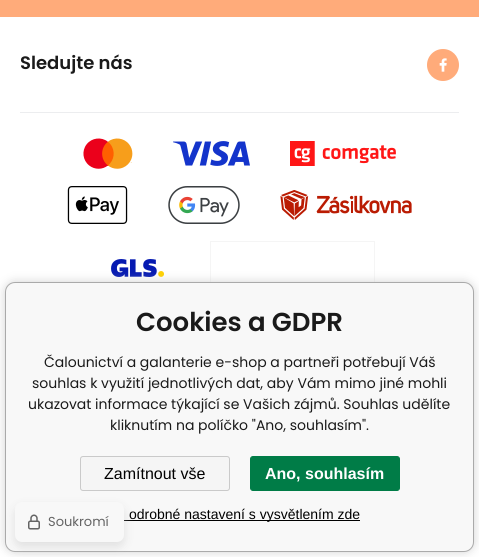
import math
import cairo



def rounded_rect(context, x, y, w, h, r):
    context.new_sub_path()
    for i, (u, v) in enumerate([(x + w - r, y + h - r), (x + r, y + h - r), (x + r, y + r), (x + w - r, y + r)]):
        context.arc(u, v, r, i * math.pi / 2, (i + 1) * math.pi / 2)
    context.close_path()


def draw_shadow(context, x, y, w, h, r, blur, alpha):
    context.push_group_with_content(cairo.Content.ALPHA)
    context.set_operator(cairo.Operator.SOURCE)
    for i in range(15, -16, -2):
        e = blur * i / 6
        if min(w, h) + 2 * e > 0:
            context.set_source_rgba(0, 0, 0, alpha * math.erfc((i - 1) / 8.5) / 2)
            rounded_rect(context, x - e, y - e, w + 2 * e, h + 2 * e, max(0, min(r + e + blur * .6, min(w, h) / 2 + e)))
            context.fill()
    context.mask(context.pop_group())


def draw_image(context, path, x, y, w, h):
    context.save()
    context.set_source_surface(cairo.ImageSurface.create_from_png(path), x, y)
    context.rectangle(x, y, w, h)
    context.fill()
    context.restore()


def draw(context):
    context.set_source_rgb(1, 1, 1)
    context.paint()
    context.set_source_rgb(1, 171 / 255, 122 / 255)
    context.rectangle(0, 0, 479, 17)
    context.fill()
    context.arc(443, 65, 16, 0, 2 * math.pi)
    context.fill()
    draw_image(context, "images/1.png", 439, 58, 8, 14)
    context.set_source_rgb(236 / 255, 237 / 255, 239 / 255)
    context.rectangle(20, 112, 439, 1)
    context.fill()
    draw_image(context, "images/2.png", 83, 138, 50, 31)
    draw_image(context, "images/3.png", 173, 141, 77, 25)
    draw_image(context, "images/4.png", 290, 141, 106, 25)
    draw_image(context, "images/5.png", 67, 186, 61, 38)
    draw_image(context, "images/6.png", 168, 186, 72, 38)
    draw_image(context, "images/7.png", 280, 190, 132, 30)
    draw_image(context, "images/8.png", 111, 259, 53, 18)
    context.rectangle(210.5, 241.5, 164, 53)
    context.set_source_rgb(245 / 255, 245 / 255, 245 / 255)
    context.set_line_width(1)
    context.stroke()
    context.set_source_rgb(200 / 255, 200 / 255, 200 / 255)
    draw_shadow(context, 5, 282, 469, 270, 10, 5, 0.8)
    context.set_source_rgb(248 / 255, 248 / 255, 248 / 255)
    rounded_rect(context, 5.5, 282.5, 468, 269, 9.5)
    context.fill_preserve()
    context.set_source_rgb(170 / 255, 170 / 255, 170 / 255)
    context.stroke()
    context.set_source_rgb(245 / 255, 245 / 255, 245 / 255)
    rounded_rect(context, 80.5, 456.5, 149, 34, 2.5)
    context.fill_preserve()
    context.set_source_rgb(202 / 255, 202 / 255, 202 / 255)
    context.stroke()
    context.set_source_rgb(0, 124 / 255, 71 / 255)
    rounded_rect(context, 250.5, 456.5, 149, 34, 2.5)
    context.fill_preserve()
    context.stroke()
    context.set_source_rgb(0, 0, 0)
    context.rectangle(119, 520, 241, 1)
    context.fill()
    context.set_source_rgb(200 / 255, 200 / 255, 200 / 255)
    draw_shadow(context, 15, 507, 109, 40, 7, 5, 0.5)
    context.set_source_rgb(248 / 255, 248 / 255, 248 / 255)
    rounded_rect(context, 15, 502, 109, 40, 7)
    context.fill()
    draw_image(context, "images/9.png", 28, 514, 12, 16)
    context.select_font_face("Poppins SemiBold")
    context.set_font_size(18)
    context.set_source_rgb(26 / 255, 26 / 255, 26 / 255)
    context.move_to(20, 69)
    context.show_text("Sledujte nás")
    context.set_font_size(26)
    context.move_to(136, 331)
    context.show_text("Cookies a GDPR")
    context.select_font_face("Poppins")
    context.set_font_size(14)
    context.move_to(44, 367)
    context.show_text("Čalounictví a galanterie e-shop a partneři potřebují Váš")
    context.move_to(32, 388)
    context.show_text("souhlas k využití jednotlivých dat, aby Vám mimo jiné mohli")
    context.move_to(28, 409)
    context.show_text("ukazovat informace týkající se Vašich zájmů. Souhlas udělíte")
    context.move_to(110, 430)
    context.show_text("kliknutím na políčko \"Ano, souhlasím\".")
    context.select_font_face("Liberation Sans")
    context.set_font_size(16)
    context.set_source_rgb(0, 0, 0)
    context.move_to(104, 479)
    context.show_text("Zamítnout vše")
    context.select_font_face("Liberation Sans", cairo.FontSlant.NORMAL, cairo.FontWeight.BOLD)
    context.set_source_rgb(1, 1, 1)
    context.move_to(265, 479)
    context.show_text("Ano, souhlasím")
    context.select_font_face("Liberation Sans")
    context.set_font_size(14)
    context.set_source_rgb(0, 0, 0)
    context.move_to(129, 519)
    context.show_text("odrobné nastavení s vysvětlením zde")
    context.select_font_face("Poppins")
    context.set_font_size(13)
    context.set_source_rgb(100 / 255, 100 / 255, 100 / 255)
    context.move_to(48, 526)
    context.show_text("Soukromí")


surface = cairo.ImageSurface(cairo.Format.RGB24, 479, 557)
context = cairo.Context(surface)
options = cairo.FontOptions()
options.set_hint_metrics(cairo.HintMetrics.OFF)
options.set_hint_style(cairo.HintStyle.NONE)
context.set_font_options(options)
context.set_miter_limit(4)
draw(context)
surface.write_to_png("out.png")
